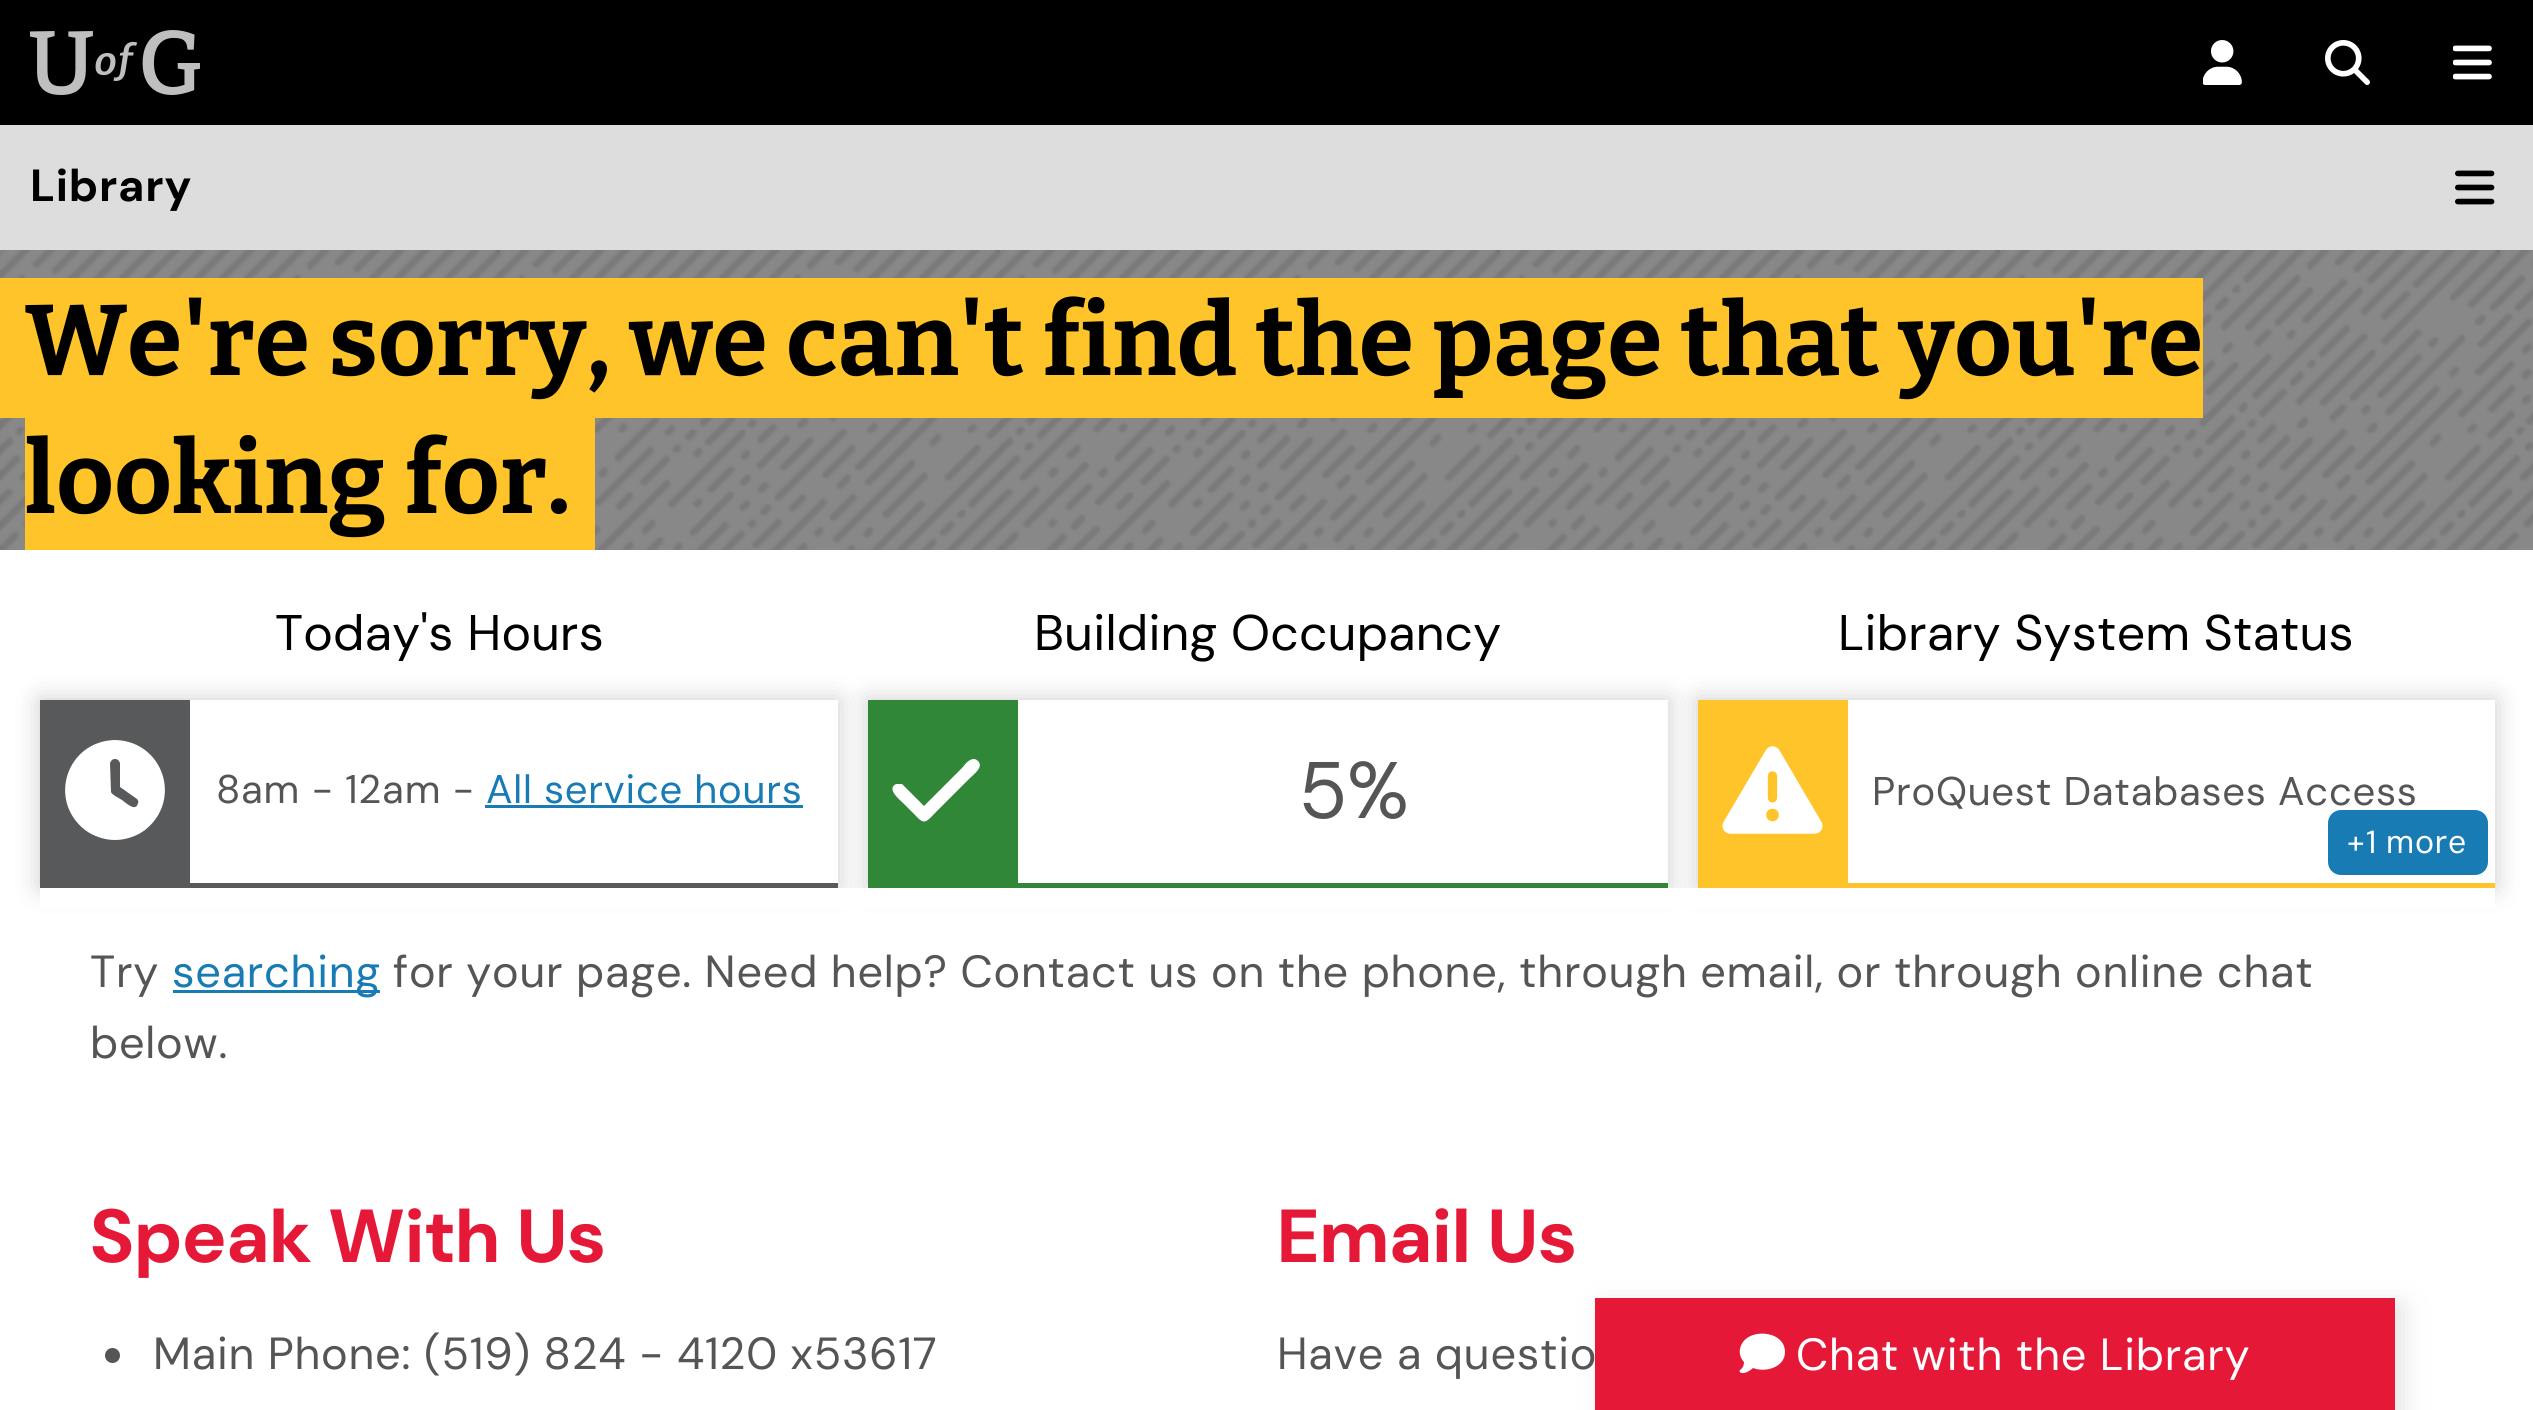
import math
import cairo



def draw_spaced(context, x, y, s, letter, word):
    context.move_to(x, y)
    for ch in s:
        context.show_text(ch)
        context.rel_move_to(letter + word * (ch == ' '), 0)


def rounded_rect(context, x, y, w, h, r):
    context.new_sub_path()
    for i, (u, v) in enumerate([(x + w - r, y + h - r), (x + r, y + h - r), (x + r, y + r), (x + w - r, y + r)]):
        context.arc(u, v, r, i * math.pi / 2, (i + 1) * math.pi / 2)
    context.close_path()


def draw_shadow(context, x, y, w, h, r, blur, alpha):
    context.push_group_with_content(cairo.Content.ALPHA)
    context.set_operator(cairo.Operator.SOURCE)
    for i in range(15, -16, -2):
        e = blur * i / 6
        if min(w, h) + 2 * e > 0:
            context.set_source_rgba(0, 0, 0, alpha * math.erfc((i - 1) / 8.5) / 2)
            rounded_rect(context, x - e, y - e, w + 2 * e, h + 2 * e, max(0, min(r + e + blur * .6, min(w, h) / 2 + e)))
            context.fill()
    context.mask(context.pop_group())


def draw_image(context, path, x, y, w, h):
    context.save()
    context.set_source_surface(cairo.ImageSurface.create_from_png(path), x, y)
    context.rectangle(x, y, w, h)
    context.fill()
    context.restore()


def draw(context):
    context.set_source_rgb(1, 1, 1)
    context.paint()
    context.set_source_rgb(0, 0, 0)
    context.rectangle(0, 0, 2533, 125)
    context.fill()
    draw_image(context, "images/1.png", 30, 30, 170, 65)
    draw_image(context, "images/2.png", 2203, 40, 39, 45)
    draw_image(context, "images/3.png", 2325, 40, 45, 45)
    draw_image(context, "images/4.png", 2453, 45, 39, 35)
    context.set_source_rgb(221 / 255, 221 / 255, 221 / 255)
    context.rectangle(0, 125, 2533, 125)
    context.fill()
    draw_image(context, "images/5.png", 2455, 170, 40, 35)
    context.set_source_rgb(136 / 255, 136 / 255, 136 / 255)
    context.rectangle(0, 250, 2533, 300)
    context.fill()
    draw_image(context, "images/6.png", 0, 250, 2533, 300)
    context.set_source_rgb(1, 196 / 255, 41 / 255)
    context.rectangle(0, 278, 2203, 140)
    context.fill()
    context.rectangle(25, 418, 570, 132)
    context.fill()
    context.set_source_rgb(204 / 255, 204 / 255, 204 / 255)
    draw_shadow(context, 40, 700, 798, 188, 0, 12.5, 1)
    context.set_source_rgb(1, 1, 1)
    context.rectangle(190, 700, 648, 183)
    context.fill()
    context.set_source_rgb(88 / 255, 89 / 255, 91 / 255)
    context.rectangle(40, 883, 798, 5)
    context.fill()
    context.rectangle(40, 700, 150, 183)
    context.fill()
    context.set_source_rgb(1, 1, 1)
    context.new_path()
    context.move_to(115, 740)
    context.curve_to(163, 741, 183, 800, 145, 830)
    context.curve_to(137, 836, 126, 840, 115, 840)
    context.curve_to(104, 840, 93, 836, 85, 830)
    context.curve_to(47, 800, 67, 741, 115, 740)
    context.close_path()
    context.move_to(110, 763)
    context.line_to(111, 792)
    context.curve_to(112, 795, 119, 798, 122, 800)
    context.curve_to(125, 802, 136, 813, 138, 803)
    context.curve_to(139, 802, 138, 800, 137, 799)
    context.line_to(120, 787)
    context.line_to(120, 763)
    context.curve_to(119, 761, 118, 759, 115, 759)
    context.curve_to(112, 759, 111, 761, 110, 763)
    context.close_path()
    context.fill()
    context.set_source_rgb(24 / 255, 123 / 255, 180 / 255)
    context.rectangle(485, 805, 318, 3)
    context.fill()
    context.set_source_rgb(204 / 255, 204 / 255, 204 / 255)
    draw_shadow(context, 868, 700, 800, 188, 0, 12.5, 1)
    context.set_source_rgb(1, 1, 1)
    context.rectangle(1018, 700, 650, 183)
    context.fill()
    context.set_source_rgb(49 / 255, 135 / 255, 56 / 255)
    context.rectangle(868, 883, 800, 5)
    context.fill()
    context.rectangle(868, 700, 150, 183)
    context.fill()
    context.set_source_rgb(1, 1, 1)
    context.new_path()
    context.move_to(978, 761)
    context.curve_to(984, 767, 974, 774, 970, 778)
    context.line_to(937, 811)
    context.curve_to(926, 822, 925, 826, 915, 815)
    context.line_to(903, 803)
    context.curve_to(900, 800, 886, 789, 896, 784)
    context.curve_to(898, 784, 900, 784, 902, 784)
    context.line_to(924, 806)
    context.line_to(962, 768)
    context.curve_to(965, 764, 972, 755, 978, 761)
    context.close_path()
    context.fill()
    context.save()
    context.set_fill_rule(cairo.FillRule.EVEN_ODD)
    context.new_path()
    context.move_to(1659, 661)
    context.line_to(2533, 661)
    context.line_to(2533, 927)
    context.line_to(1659, 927)
    context.close_path()
    context.move_to(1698, 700)
    context.line_to(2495, 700)
    context.line_to(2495, 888)
    context.line_to(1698, 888)
    context.close_path()
    context.clip()
    context.set_source_rgb(204 / 255, 204 / 255, 204 / 255)
    draw_shadow(context, 1698, 700, 797, 188, 0, 12.5, 1)
    context.restore()
    context.set_source_rgb(1, 196 / 255, 41 / 255)
    context.rectangle(1698, 883, 797, 5)
    context.fill()
    context.rectangle(1698, 700, 150, 183)
    context.fill()
    draw_image(context, "images/7.png", 1722, 746, 101, 88)
    context.set_source_rgb(24 / 255, 123 / 255, 180 / 255)
    rounded_rect(context, 2328, 810, 160, 65, 13)
    context.fill()
    context.set_source_rgb(1, 1, 1)
    context.rectangle(40, 888, 2455, 21)
    context.fill()
    context.set_source_rgb(24 / 255, 123 / 255, 180 / 255)
    context.rectangle(173, 990, 207, 3)
    context.fill()
    context.set_source_rgb(85 / 255, 85 / 255, 85 / 255)
    context.arc(112.5, 1355.5, 7.5, 0, 2 * math.pi)
    context.fill()
    context.set_source_rgb(186 / 255, 186 / 255, 186 / 255)
    draw_shadow(context, 1603, 1305, 800, 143, 0, 12.5, 0.4)
    context.set_source_rgb(229 / 255, 25 / 255, 55 / 255)
    context.rectangle(1595, 1298, 800, 112)
    context.fill()
    context.set_source_rgb(1, 1, 1)
    context.new_path()
    context.move_to(1785, 1352)
    context.curve_to(1785, 1367, 1766, 1373, 1753, 1368)
    context.curve_to(1744, 1376, 1738, 1373, 1740, 1370)
    context.curve_to(1743, 1368, 1744, 1365, 1744, 1362)
    context.curve_to(1741, 1359, 1739, 1354, 1740, 1349)
    context.curve_to(1744, 1327, 1785, 1329, 1785, 1352)
    context.close_path()
    context.fill()
    context.select_font_face("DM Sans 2", cairo.FontSlant.NORMAL, cairo.FontWeight.BOLD)
    context.set_font_size(45)
    context.set_source_rgb(0, 0, 0)
    draw_spaced(context, 30, 201, "Library", 0.75, 0)
    context.select_font_face("Bitter", cairo.FontSlant.NORMAL, cairo.FontWeight.BOLD)
    context.set_font_size(100)
    draw_spaced(context, 25, 375, "We're sorry, we can't find the page that you're", 0.25, 0)
    draw_spaced(context, 25, 513, "looking for.", 0.25, 0)
    context.select_font_face("DM Sans")
    context.set_font_size(50)
    draw_spaced(context, 275, 650, "Today's Hours", 0.25, 0)
    context.select_font_face("DM Sans 2")
    context.set_font_size(40)
    context.set_source_rgb(85 / 255, 85 / 255, 85 / 255)
    draw_spaced(context, 216, 803, "8am - 12am -", 0.75, 0)
    context.set_source_rgb(24 / 255, 123 / 255, 180 / 255)
    draw_spaced(context, 486, 803, "All service hours", 0.75, 0)
    context.select_font_face("DM Sans")
    context.set_font_size(50)
    context.set_source_rgb(0, 0, 0)
    draw_spaced(context, 1034, 650, "Building Occupancy", 0.25, 0)
    context.select_font_face("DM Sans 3")
    context.set_font_size(80)
    context.set_source_rgb(85 / 255, 85 / 255, 85 / 255)
    draw_spaced(context, 1300, 818, "5%", 0.75, 0)
    context.select_font_face("DM Sans")
    context.set_font_size(50)
    context.set_source_rgb(0, 0, 0)
    draw_spaced(context, 1838, 650, "Library System Status", 0.25, 0)
    context.select_font_face("DM Sans 2")
    context.set_font_size(40)
    context.set_source_rgb(85 / 255, 85 / 255, 85 / 255)
    draw_spaced(context, 1872, 805, "ProQuest Databases Access", 0.75, 0)
    context.select_font_face("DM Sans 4")
    context.set_font_size(32)
    context.set_source_rgb(1, 1, 1)
    draw_spaced(context, 2347, 853, "+", 0.75, 0)
    context.select_font_face("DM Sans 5")
    draw_spaced(context, 2366, 853, "1", 0.75, 0)
    context.select_font_face("DM Sans 4")
    draw_spaced(context, 2386, 853, "more", 0.75, 0)
    context.select_font_face("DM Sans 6")
    context.set_font_size(45)
    context.set_source_rgb(85 / 255, 85 / 255, 85 / 255)
    draw_spaced(context, 90, 987, "Try", 0.75, 0)
    context.set_source_rgb(24 / 255, 123 / 255, 180 / 255)
    draw_spaced(context, 172, 987, "searching", 0.75, 0)
    context.set_source_rgb(85 / 255, 85 / 255, 85 / 255)
    draw_spaced(context, 393, 987, "for your page. Need help? Contact us on the phone, through email, or through online chat", 0.75, 0)
    draw_spaced(context, 90, 1058, "below.", 0.75, 0)
    context.select_font_face("DM Sans", cairo.FontSlant.NORMAL, cairo.FontWeight.BOLD)
    context.set_font_size(75)
    context.set_source_rgb(229 / 255, 25 / 255, 55 / 255)
    draw_spaced(context, 90, 1262, "Speak With Us", 0.25, 0)
    context.select_font_face("DM Sans 6")
    context.set_font_size(45)
    context.set_source_rgb(85 / 255, 85 / 255, 85 / 255)
    draw_spaced(context, 153, 1369, "Main Phone: (519) 824 - 4120 x53617", 0.75, 0)
    context.select_font_face("DM Sans", cairo.FontSlant.NORMAL, cairo.FontWeight.BOLD)
    context.set_font_size(75)
    context.set_source_rgb(229 / 255, 25 / 255, 55 / 255)
    draw_spaced(context, 1277, 1262, "Email Us", 0.25, 0)
    context.select_font_face("DM Sans 6")
    context.set_font_size(45)
    context.set_source_rgb(85 / 255, 85 / 255, 85 / 255)
    draw_spaced(context, 1277, 1369, "Have a questio", 0.75, 0)
    context.set_source_rgb(1, 1, 1)
    draw_spaced(context, 1796, 1370, "Chat with the Library", 0.75, 0)


surface = cairo.ImageSurface(cairo.Format.RGB24, 2533, 1410)
context = cairo.Context(surface)
options = cairo.FontOptions()
options.set_hint_metrics(cairo.HintMetrics.OFF)
options.set_hint_style(cairo.HintStyle.NONE)
context.set_font_options(options)
context.set_miter_limit(4)
draw(context)
surface.write_to_png("out.png")
